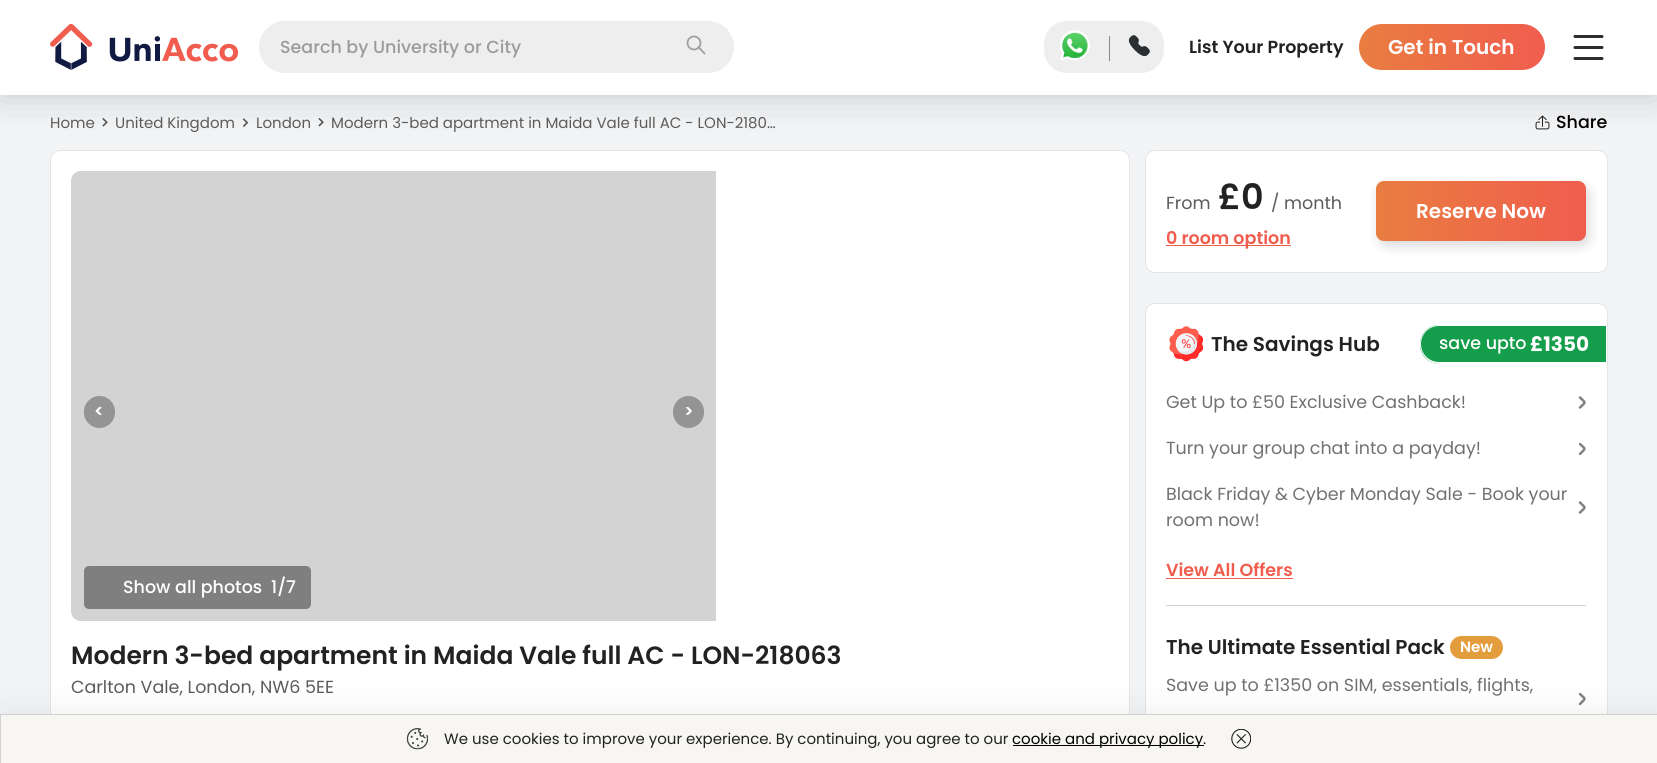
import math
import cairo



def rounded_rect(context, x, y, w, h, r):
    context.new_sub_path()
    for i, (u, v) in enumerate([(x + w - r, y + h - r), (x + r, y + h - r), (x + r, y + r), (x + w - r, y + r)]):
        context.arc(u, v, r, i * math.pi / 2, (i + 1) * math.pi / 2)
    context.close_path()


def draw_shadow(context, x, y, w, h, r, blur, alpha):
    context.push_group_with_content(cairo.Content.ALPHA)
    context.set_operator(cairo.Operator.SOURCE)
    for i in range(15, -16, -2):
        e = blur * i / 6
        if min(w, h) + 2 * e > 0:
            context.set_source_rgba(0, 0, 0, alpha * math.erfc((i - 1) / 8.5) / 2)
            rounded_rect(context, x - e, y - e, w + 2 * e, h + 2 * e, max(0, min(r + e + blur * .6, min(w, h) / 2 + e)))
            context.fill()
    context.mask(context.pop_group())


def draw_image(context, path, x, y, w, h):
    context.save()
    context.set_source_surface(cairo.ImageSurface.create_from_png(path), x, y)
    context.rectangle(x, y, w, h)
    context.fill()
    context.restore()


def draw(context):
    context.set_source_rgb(243 / 255, 244 / 255, 246 / 255)
    context.paint()
    draw_image(context, "images/4.png", 102, 118, 6, 9)
    draw_image(context, "images/5.png", 242, 118, 7, 9)
    draw_image(context, "images/6.png", 318, 117, 6, 10)
    draw_image(context, "images/7.png", 1535, 115, 15, 15)
    context.set_source_rgb(1, 1, 1)
    rounded_rect(context, 50.5, 150.5, 1079, 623, 9.5)
    context.fill_preserve()
    context.set_source_rgb(228 / 255, 228 / 255, 228 / 255)
    context.set_line_width(1)
    context.stroke()
    context.set_source_rgb(1, 1, 1)
    rounded_rect(context, 1145.5, 150.5, 462, 122, 9.5)
    context.fill_preserve()
    context.set_source_rgb(228 / 255, 228 / 255, 228 / 255)
    context.stroke()
    context.set_source_rgb(0, 0, 0)
    draw_shadow(context, 0, 0, 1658, 95, 0, 19, 0.2)
    context.set_source_rgb(1, 1, 1)
    context.rectangle(0, 0, 1657, 95)
    context.fill()
    draw_image(context, "images/1.png", 50, 24, 189, 46)
    context.set_source_rgb(238 / 255, 238 / 255, 238 / 255)
    rounded_rect(context, 259, 21, 475, 52, 26)
    context.fill()
    context.arc(694, 43, 6.5, 0, 2 * math.pi)
    context.set_source_rgb(160 / 255, 159 / 255, 159 / 255)
    context.set_line_width(1.8)
    context.stroke()
    context.new_path()
    context.move_to(698, 46.5)
    context.line_to(705, 54)
    context.stroke()
    context.set_source_rgb(238 / 255, 238 / 255, 238 / 255)
    rounded_rect(context, 1044, 21, 120, 52, 23)
    context.fill()
    draw_image(context, "images/2.png", 1060, 30, 30, 31)
    context.set_source_rgb(136 / 255, 136 / 255, 136 / 255)
    context.rectangle(1109, 36, 1, 25)
    context.fill()
    draw_image(context, "images/3.png", 1128, 35, 22, 22)
    gradient = cairo.LinearGradient(1545, 47, 1359, 47)
    gradient.add_color_stop_rgba(0, 240 / 255, 93 / 255, 78 / 255, 1)
    gradient.add_color_stop_rgba(1, 233 / 255, 125 / 255, 64 / 255, 1)
    context.set_source(gradient)
    rounded_rect(context, 1359, 24, 186, 46, 23)
    context.fill()
    context.new_path()
    context.move_to(1575, 36.5)
    context.line_to(1602, 36.5)
    context.move_to(1575, 47.5)
    context.line_to(1602, 47.5)
    context.move_to(1575, 58.5)
    context.line_to(1602, 58.5)
    context.set_source_rgb(42 / 255, 46 / 255, 49 / 255)
    context.set_line_width(3)
    context.set_line_cap(cairo.LineCap.ROUND)
    context.stroke()
    context.set_source_rgb(211 / 255, 211 / 255, 211 / 255)
    context.new_path()
    context.move_to(81, 171)
    context.line_to(716, 171)
    context.line_to(716, 621)
    context.line_to(81, 621)
    context.curve_to(75.5, 621, 71, 616.5, 71, 611)
    context.line_to(71, 181)
    context.curve_to(71, 175.5, 75.5, 171, 81, 171)
    context.close_path()
    context.fill()
    context.set_source_rgb(148 / 255, 148 / 255, 148 / 255)
    rounded_rect(context, 84, 396, 31, 32, 15.5)
    context.fill()
    rounded_rect(context, 673, 396, 31, 32, 15.5)
    context.fill()
    context.set_source_rgb(127 / 255, 127 / 255, 127 / 255)
    rounded_rect(context, 84, 566, 227, 43, 5)
    context.fill()
    context.set_source_rgb(240 / 255, 93 / 255, 78 / 255)
    context.rectangle(1166, 245, 125, 1)
    context.fill()
    context.set_source_rgb(0, 0, 0)
    draw_shadow(context, 1379, 186, 210, 60, 8, 6, 0.15)
    gradient = cairo.LinearGradient(1586, 211, 1376, 211)
    gradient.add_color_stop_rgba(0, 240 / 255, 93 / 255, 78 / 255, 1)
    gradient.add_color_stop_rgba(1, 233 / 255, 125 / 255, 64 / 255, 1)
    context.set_source(gradient)
    rounded_rect(context, 1376, 181, 210, 60, 8)
    context.fill()
    context.set_source_rgb(1, 1, 1)
    rounded_rect(context, 1145.5, 303.5, 462, 442, 9.5)
    context.fill_preserve()
    context.set_source_rgb(228 / 255, 228 / 255, 228 / 255)
    context.set_line_width(1)
    context.set_line_cap(cairo.LineCap.BUTT)
    context.stroke()
    draw_image(context, "images/8.png", 1169, 326, 35, 36)
    context.set_source_rgb(20 / 255, 157 / 255, 74 / 255)
    context.new_path()
    context.move_to(1439.5, 325)
    context.line_to(1606, 325)
    context.line_to(1606, 364)
    context.line_to(1439.5, 364)
    context.curve_to(1428.5, 364, 1420, 355.5, 1420, 344.5)
    context.curve_to(1420, 333.5, 1428.5, 325, 1439.5, 325)
    context.close_path()
    context.fill()
    context.set_source_rgb(1, 1, 1)
    context.set_fill_rule(cairo.FillRule.EVEN_ODD)
    context.new_path()
    context.move_to(1439, 325)
    context.line_to(1606, 325)
    context.line_to(1606, 364)
    context.line_to(1439, 364)
    context.curve_to(1429, 364, 1420, 355, 1420, 344)
    context.curve_to(1420, 334, 1429, 325, 1439, 325)
    context.close_path()
    context.move_to(1439, 326)
    context.line_to(1606, 326)
    context.line_to(1606, 362)
    context.line_to(1439, 362)
    context.curve_to(1429, 362, 1421, 354, 1421, 344)
    context.curve_to(1421, 334, 1429, 326, 1439, 326)
    context.close_path()
    context.fill()
    context.new_path()
    context.move_to(1580, 407.5)
    context.curve_to(1586, 401.5, 1586, 403.5, 1580, 397.5)
    context.set_source_rgb(129 / 255, 129 / 255, 129 / 255)
    context.set_line_width(2.5)
    context.set_line_cap(cairo.LineCap.ROUND)
    context.stroke()
    context.save()
    context.set_fill_rule(cairo.FillRule.WINDING)
    context.rectangle(1579, 443, 7, 12)
    context.clip()
    context.new_path()
    context.move_to(1580, 454)
    context.curve_to(1586, 447.5, 1586, 450, 1580, 444)
    context.stroke()
    context.restore()
    context.new_path()
    context.move_to(1580, 512.5)
    context.curve_to(1586, 506.5, 1586, 508.5, 1580, 502.5)
    context.stroke()
    context.set_source_rgb(240 / 255, 93 / 255, 78 / 255)
    context.rectangle(1166, 578, 127, 1)
    context.fill()
    context.set_source_rgb(208 / 255, 208 / 255, 208 / 255)
    context.rectangle(1166, 605, 420, 1)
    context.fill()
    context.set_source_rgb(227 / 255, 157 / 255, 61 / 255)
    rounded_rect(context, 1450, 636, 53, 23, 11.5)
    context.fill()
    context.save()
    context.set_fill_rule(cairo.FillRule.WINDING)
    context.rectangle(1579, 693, 7, 12)
    context.clip()
    context.new_path()
    context.move_to(1580, 704)
    context.curve_to(1586, 697.5, 1586, 700, 1580, 694)
    context.set_source_rgb(129 / 255, 129 / 255, 129 / 255)
    context.stroke()
    context.restore()
    context.set_source_rgb(0, 0, 0)
    draw_shadow(context, 3, 719, 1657, 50, 0, 19, 0.1)
    context.set_source_rgb(247 / 255, 246 / 255, 243 / 255)
    context.rectangle(0.5, 714.5, 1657, 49)
    context.fill_preserve()
    context.set_source_rgb(209 / 255, 209 / 255, 209 / 255)
    context.set_line_width(1)
    context.set_line_cap(cairo.LineCap.BUTT)
    context.stroke()
    draw_image(context, "images/9.png", 406, 728, 23, 22)
    context.set_source_rgb(0, 0, 0)
    context.rectangle(1013, 745, 191, 1)
    context.fill()
    draw_image(context, "images/10.png", 1231, 729, 20, 20)
    context.select_font_face("Poppins Medium")
    context.set_font_size(17.5)
    context.set_source_rgb(155 / 255, 155 / 255, 155 / 255)
    context.move_to(280, 53)
    context.show_text("Search by University or City")
    context.select_font_face("Poppins SemiBold")
    context.set_source_rgb(34 / 255, 34 / 255, 34 / 255)
    context.move_to(1189, 53)
    context.show_text("List Your Property")
    context.set_font_size(20)
    context.set_source_rgb(1, 1, 1)
    context.move_to(1388, 54)
    context.show_text("Get in Touch")
    context.select_font_face("Poppins")
    context.set_font_size(15)
    context.set_source_rgb(91 / 255, 91 / 255, 91 / 255)
    context.move_to(50, 128)
    context.show_text("Home")
    context.move_to(115, 128)
    context.show_text("United Kingdom")
    context.move_to(256, 128)
    context.show_text("London")
    context.move_to(331, 128)
    context.show_text("Modern 3-bed apartment in Maida Vale full AC - LON-2180…")
    context.select_font_face("Poppins Medium")
    context.set_font_size(17.5)
    context.set_source_rgb(0, 0, 0)
    context.move_to(1556, 128)
    context.show_text("Share")
    context.select_font_face("Poppins SemiBold")
    context.set_font_size(17)
    context.set_source_rgb(1, 1, 1)
    context.move_to(94, 417)
    context.show_text("<")
    context.move_to(684, 417)
    context.show_text(">")
    context.select_font_face("Poppins Medium")
    context.set_font_size(17.5)
    context.move_to(123, 593)
    context.show_text("Show all photos")
    context.move_to(271, 593)
    context.show_text("1/7")
    context.select_font_face("Poppins SemiBold")
    context.set_font_size(25)
    context.set_source_rgb(34 / 255, 34 / 255, 34 / 255)
    context.move_to(71, 664)
    context.show_text("Modern 3-bed apartment in Maida Vale full AC - LON-218063")
    context.select_font_face("Poppins")
    context.set_font_size(17.5)
    context.set_source_rgb(91 / 255, 91 / 255, 91 / 255)
    context.move_to(71, 693)
    context.show_text("Carlton Vale, London, NW6 5EE")
    context.move_to(1166, 209)
    context.show_text("From")
    context.select_font_face("Poppins SemiBold")
    context.set_font_size(35)
    context.set_source_rgb(34 / 255, 34 / 255, 34 / 255)
    context.move_to(1218, 209)
    context.show_text("£0")
    context.select_font_face("Poppins")
    context.set_font_size(17.5)
    context.set_source_rgb(91 / 255, 91 / 255, 91 / 255)
    context.move_to(1271, 209)
    context.show_text("/ month")
    context.select_font_face("Poppins SemiBold")
    context.set_source_rgb(240 / 255, 93 / 255, 78 / 255)
    context.move_to(1166, 244)
    context.show_text("0 room option")
    context.set_font_size(20)
    context.set_source_rgb(1, 1, 1)
    context.move_to(1416, 218)
    context.show_text("Reserve Now")
    context.set_source_rgb(34 / 255, 34 / 255, 34 / 255)
    context.move_to(1211, 351)
    context.show_text("The Savings Hub")
    context.select_font_face("Poppins Medium")
    context.set_font_size(17.5)
    context.set_source_rgb(1, 1, 1)
    context.move_to(1439, 349)
    context.show_text("save upto")
    context.select_font_face("Poppins", cairo.FontSlant.NORMAL, cairo.FontWeight.BOLD)
    context.set_font_size(20)
    context.move_to(1530, 351)
    context.show_text("£1350")
    context.select_font_face("Poppins")
    context.set_font_size(17.5)
    context.set_source_rgb(113 / 255, 113 / 255, 113 / 255)
    context.move_to(1166, 408)
    context.show_text("Get Up to £50 Exclusive Cashback!")
    context.move_to(1166, 454)
    context.show_text("Turn your group chat into a payday!")
    context.move_to(1166, 500)
    context.show_text("Black Friday & Cyber Monday Sale - Book your")
    context.move_to(1166, 526)
    context.show_text("room now!")
    context.select_font_face("Poppins SemiBold")
    context.set_source_rgb(240 / 255, 93 / 255, 78 / 255)
    context.move_to(1166, 576)
    context.show_text("View All Offers")
    context.set_font_size(20)
    context.set_source_rgb(34 / 255, 34 / 255, 34 / 255)
    context.move_to(1166, 654)
    context.show_text("The Ultimate Essential Pack")
    context.set_font_size(15)
    context.set_source_rgb(1, 1, 1)
    context.move_to(1460, 652)
    context.show_text("New")
    context.select_font_face("Poppins")
    context.set_font_size(17.5)
    context.set_source_rgb(113 / 255, 113 / 255, 113 / 255)
    context.move_to(1166, 691)
    context.show_text("Save up to £1350 on SIM, essentials, flights,")
    context.set_font_size(15)
    context.set_source_rgb(34 / 255, 34 / 255, 34 / 255)
    context.move_to(444, 744)
    context.show_text("We use cookies to improve your experience. By continuing, you agree to our")
    context.set_source_rgb(0, 0, 0)
    context.move_to(1012, 744)
    context.show_text("cookie and privacy policy")
    context.set_source_rgb(34 / 255, 34 / 255, 34 / 255)
    context.move_to(1203, 744)
    context.show_text(".")


surface = cairo.ImageSurface(cairo.Format.RGB24, 1657, 763)
context = cairo.Context(surface)
options = cairo.FontOptions()
options.set_hint_metrics(cairo.HintMetrics.OFF)
options.set_hint_style(cairo.HintStyle.NONE)
context.set_font_options(options)
context.set_miter_limit(4)
draw(context)
surface.write_to_png("out.png")
